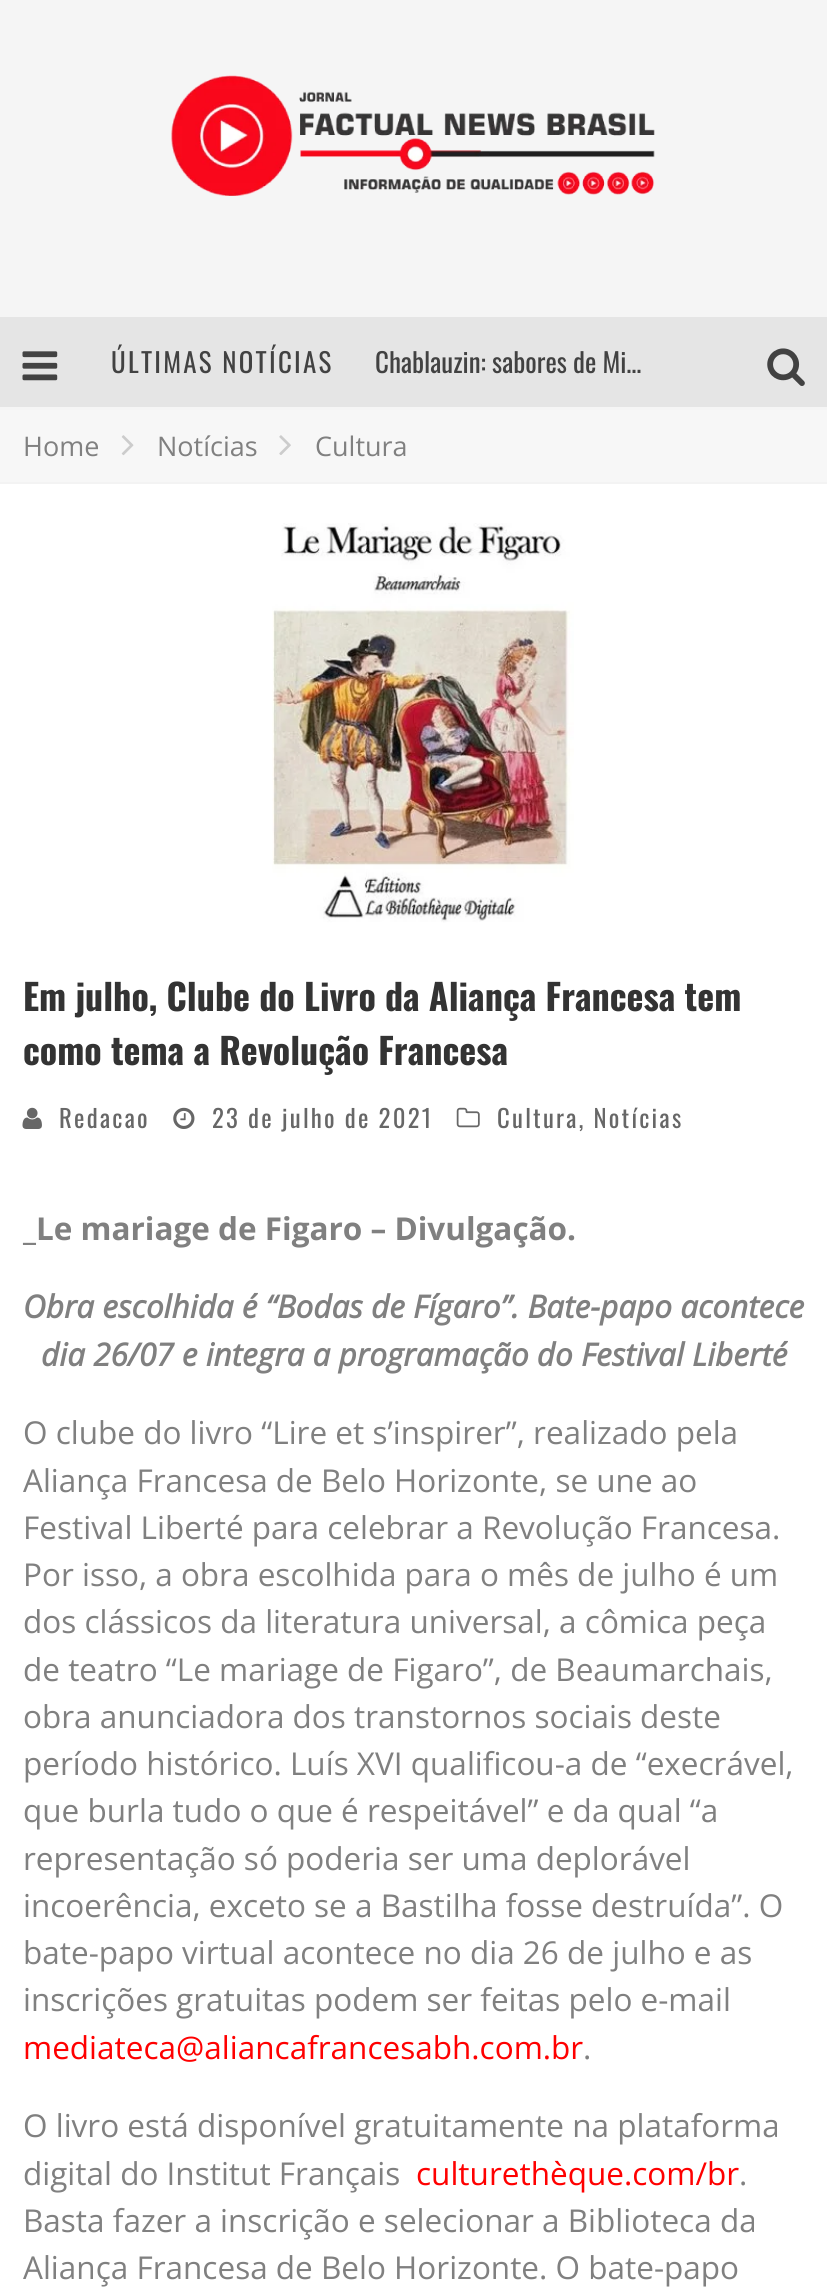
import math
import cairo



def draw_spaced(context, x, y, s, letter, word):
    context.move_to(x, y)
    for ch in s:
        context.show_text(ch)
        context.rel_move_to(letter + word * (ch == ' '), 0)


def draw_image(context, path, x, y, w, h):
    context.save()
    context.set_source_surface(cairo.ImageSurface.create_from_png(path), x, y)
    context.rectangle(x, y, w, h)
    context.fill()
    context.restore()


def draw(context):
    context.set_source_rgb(1, 1, 1)
    context.paint()
    context.set_source_rgb(245 / 255, 245 / 255, 245 / 255)
    context.rectangle(0, 0, 827, 410)
    context.fill()
    draw_image(context, "images/1.png", 171, 75, 484, 121)
    context.set_source_rgb(229 / 255, 229 / 255, 229 / 255)
    context.rectangle(0, 317, 827, 90)
    context.fill()
    draw_image(context, "images/2.png", 22, 351, 36, 30)
    draw_image(context, "images/3.png", 767, 348, 38, 38)
    context.set_source_rgb(247 / 255, 247 / 255, 247 / 255)
    context.rectangle(0, 410, 827, 72)
    context.fill()
    context.set_source_rgb(243 / 255, 243 / 255, 243 / 255)
    context.rectangle(0, 482, 827, 2)
    context.fill()
    draw_image(context, "images/4.png", 121, 435, 13, 21)
    draw_image(context, "images/5.png", 279, 435, 12, 20)
    draw_image(context, "images/6.png", 272, 523, 302, 400)
    draw_image(context, "images/7.png", 22, 1107, 20, 22)
    draw_image(context, "images/8.png", 173, 1107, 22, 22)
    draw_image(context, "images/9.png", 456, 1107, 24, 21)
    context.select_font_face("Oswald")
    context.set_font_size(27)
    context.set_source_rgb(66 / 255, 66 / 255, 66 / 255)
    draw_spaced(context, 111, 373, "ÚLTIMAS NOTÍCIAS", 2.25, 0)
    context.move_to(375, 373)
    context.show_text("Chablauzin: sabores de Mi…")
    context.select_font_face("Open Sans")
    context.set_source_rgb(128 / 255, 128 / 255, 128 / 255)
    context.move_to(23, 456)
    context.show_text("Home")
    context.move_to(157, 456)
    context.show_text("Notícias")
    context.move_to(315, 456)
    context.show_text("Cultura")
    context.select_font_face("Oswald", cairo.FontSlant.NORMAL, cairo.FontWeight.BOLD)
    context.set_font_size(36)
    context.set_source_rgb(51 / 255, 51 / 255, 51 / 255)
    context.move_to(23, 1011)
    context.show_text("Em julho, Clube do Livro da Aliança Francesa tem")
    context.move_to(23, 1065)
    context.show_text("como tema a Revolução Francesa")
    context.select_font_face("Oswald")
    context.set_font_size(24.75)
    context.set_source_rgb(103 / 255, 103 / 255, 103 / 255)
    draw_spaced(context, 59, 1128, "Redacao", 2.25, 0)
    draw_spaced(context, 212, 1128, "23 de julho de 2021", 2.25, 0)
    draw_spaced(context, 497, 1128, "Cultura, Notícias", 2.25, 0)
    context.select_font_face("Open Sans", cairo.FontSlant.NORMAL, cairo.FontWeight.BOLD)
    context.set_font_size(31.5)
    context.set_source_rgb(128 / 255, 128 / 255, 128 / 255)
    context.move_to(23, 1240)
    context.show_text("_Le mariage de Figaro – Divulgação.")
    context.select_font_face("Open Sans", cairo.FontSlant.ITALIC, cairo.FontWeight.BOLD)
    context.move_to(23, 1318)
    context.show_text("Obra escolhida é “Bodas de Fígaro”. Bate-papo acontece")
    context.move_to(41, 1366)
    context.show_text("dia 26/07 e integra a programação do Festival Liberté")
    context.select_font_face("Open Sans")
    context.move_to(23, 1444)
    context.show_text("O clube do livro “Lire et s’inspirer”, realizado pela")
    context.move_to(23, 1492)
    context.show_text("Aliança Francesa de Belo Horizonte, se une ao")
    context.move_to(23, 1539)
    context.show_text("Festival Liberté para celebrar a Revolução Francesa.")
    context.move_to(23, 1586)
    context.show_text("Por isso, a obra escolhida para o mês de julho é um")
    context.move_to(23, 1633)
    context.show_text("dos clássicos da literatura universal, a cômica peça")
    context.move_to(23, 1681)
    context.show_text("de teatro “Le mariage de Figaro”, de Beaumarchais,")
    context.move_to(23, 1728)
    context.show_text("obra anunciadora dos transtornos sociais deste")
    context.move_to(23, 1775)
    context.show_text("período histórico. Luís XVI qualificou-a de “execrável,")
    context.move_to(23, 1822)
    context.show_text("que burla tudo o que é respeitável” e da qual “a")
    context.move_to(23, 1870)
    context.show_text("representação só poderia ser uma deplorável")
    context.move_to(23, 1917)
    context.show_text("incoerência, exceto se a Bastilha fosse destruída”. O")
    context.move_to(23, 1964)
    context.show_text("bate-papo virtual acontece no dia 26 de julho e as")
    context.move_to(23, 2011)
    context.show_text("inscrições gratuitas podem ser feitas pelo e-mail")
    context.set_source_rgb(1, 0, 0)
    context.move_to(23, 2059)
    context.show_text("mediateca@aliancafrancesabh.com.br")
    context.set_source_rgb(128 / 255, 128 / 255, 128 / 255)
    context.move_to(583, 2059)
    context.show_text(".")
    context.move_to(23, 2137)
    context.show_text("O livro está disponível gratuitamente na plataforma")
    context.move_to(23, 2185)
    context.show_text("digital do Institut Français")
    context.set_source_rgb(1, 0, 0)
    context.move_to(416, 2185)
    context.show_text("culturethèque.com/br")
    context.set_source_rgb(128 / 255, 128 / 255, 128 / 255)
    context.move_to(739, 2185)
    context.show_text(".")
    context.move_to(23, 2232)
    context.show_text("Basta fazer a inscrição e selecionar a Biblioteca da")
    context.move_to(23, 2279)
    context.show_text("Aliança Francesa de Belo Horizonte. O bate-papo")


surface = cairo.ImageSurface(cairo.Format.RGB24, 827, 2291)
context = cairo.Context(surface)
options = cairo.FontOptions()
options.set_hint_metrics(cairo.HintMetrics.OFF)
options.set_hint_style(cairo.HintStyle.NONE)
context.set_font_options(options)
context.set_miter_limit(4)
draw(context)
surface.write_to_png("out.png")
